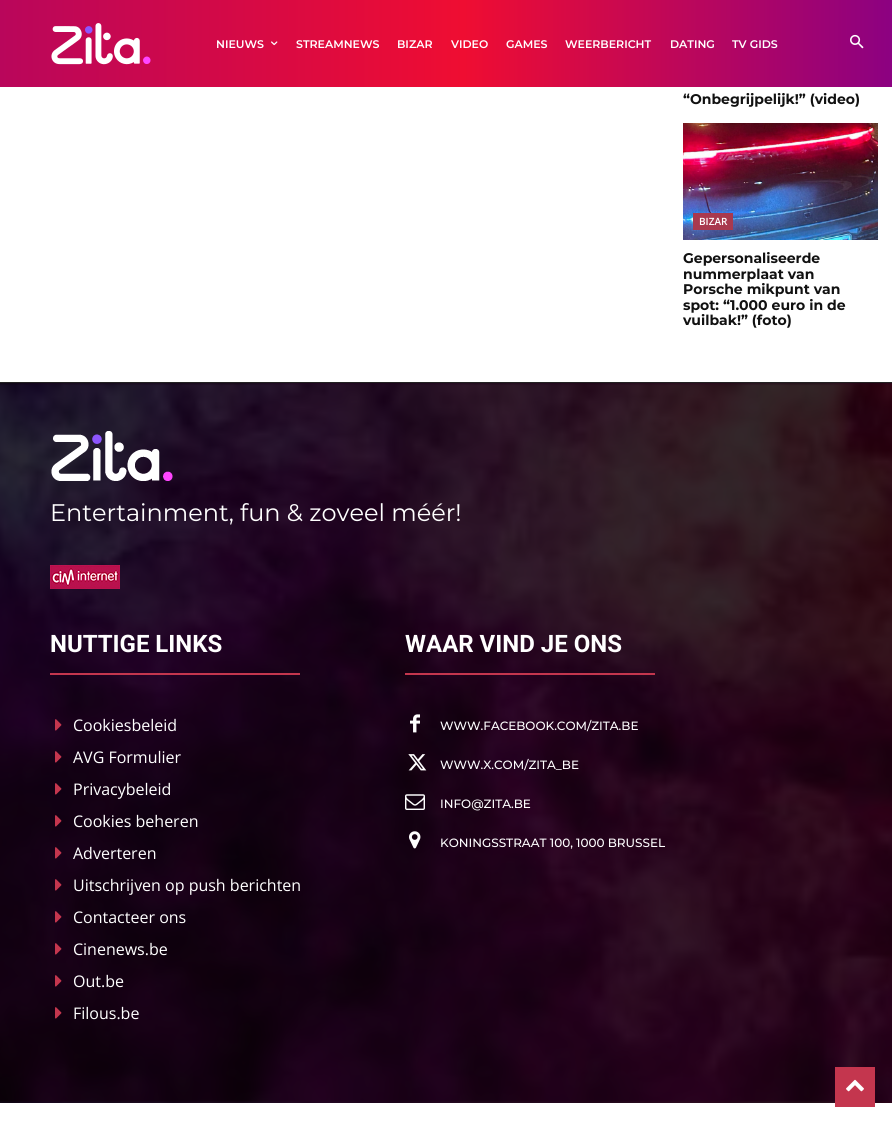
import math
import cairo



def draw_image(context, path, x, y, w, h):
    context.save()
    context.set_source_surface(cairo.ImageSurface.create_from_png(path), x, y)
    context.rectangle(x, y, w, h)
    context.fill()
    context.restore()


def draw(context):
    context.set_source_rgb(1, 1, 1)
    context.paint()
    gradient = cairo.LinearGradient(892, 44, 0, 43)
    gradient.add_color_stop_rgba(0, 140 / 255, 1 / 255, 129 / 255, 1)
    gradient.add_color_stop_rgba(0.48, 239 / 255, 13 / 255, 50 / 255, 1)
    gradient.add_color_stop_rgba(1, 185 / 255, 6 / 255, 91 / 255, 1)
    context.set_source(gradient)
    context.rectangle(0, 0, 892, 87)
    context.fill()
    draw_image(context, "images/1.png", 51, 23, 100, 42)
    draw_image(context, "images/2.png", 271, 41, 7, 5)
    draw_image(context, "images/3.png", 850, 34, 14, 15)
    draw_image(context, "images/4.png", 683, 123, 195, 117)
    context.set_source_rgb(169 / 255, 57 / 255, 78 / 255)
    context.rectangle(693, 213, 40, 17)
    context.fill()
    draw_image(context, "images/5.png", 0, 383, 892, 720)
    context.set_source_rgb(34 / 255, 34 / 255, 34 / 255)
    context.rectangle(0, 382, 892, 1)
    context.fill()
    draw_image(context, "images/6.png", 51, 431, 122, 50)
    draw_image(context, "images/7.png", 50, 565, 70, 24)
    context.set_source_rgb(196 / 255, 54 / 255, 78 / 255)
    context.rectangle(50, 673, 250, 2)
    context.fill()
    draw_image(context, "images/8.png", 55, 719, 7, 12)
    draw_image(context, "images/9.png", 55, 751, 7, 12)
    draw_image(context, "images/10.png", 55, 783, 7, 12)
    draw_image(context, "images/11.png", 55, 815, 7, 12)
    draw_image(context, "images/12.png", 55, 847, 7, 12)
    draw_image(context, "images/13.png", 55, 879, 7, 12)
    draw_image(context, "images/14.png", 55, 911, 7, 12)
    draw_image(context, "images/15.png", 55, 943, 7, 12)
    draw_image(context, "images/16.png", 55, 975, 7, 12)
    draw_image(context, "images/17.png", 55, 1007, 7, 12)
    context.rectangle(405, 673, 250, 2)
    context.fill()
    draw_image(context, "images/18.png", 410, 714, 10, 19)
    draw_image(context, "images/19.png", 408, 754, 19, 17)
    draw_image(context, "images/20.png", 405, 794, 20, 16)
    draw_image(context, "images/21.png", 409, 831, 12, 18)
    context.rectangle(835, 1067, 40, 40)
    context.fill()
    draw_image(context, "images/22.png", 846, 1079, 18, 13)
    context.select_font_face("Montserrat SemiBold")
    context.set_font_size(11)
    context.set_source_rgb(1, 1, 1)
    context.move_to(216, 48)
    context.show_text("NIEUWS")
    context.move_to(296, 48)
    context.show_text("STREAMNEWS")
    context.move_to(397, 48)
    context.show_text("BIZAR")
    context.move_to(451, 48)
    context.show_text("VIDEO")
    context.move_to(506, 48)
    context.show_text("GAMES")
    context.move_to(565, 48)
    context.show_text("WEERBERICHT")
    context.move_to(670, 48)
    context.show_text("DATING")
    context.move_to(732, 48)
    context.show_text("TV GIDS")
    context.select_font_face("Montserrat", cairo.FontSlant.NORMAL, cairo.FontWeight.BOLD)
    context.set_font_size(14)
    context.set_source_rgb(17 / 255, 17 / 255, 17 / 255)
    context.move_to(683, 104)
    context.show_text("“Onbegrijpelijk!” (video)")
    context.select_font_face("Open Sans SemiBold")
    context.set_font_size(10)
    context.set_source_rgb(1, 1, 1)
    context.move_to(699, 225)
    context.show_text("BIZAR")
    context.select_font_face("Montserrat", cairo.FontSlant.NORMAL, cairo.FontWeight.BOLD)
    context.set_font_size(14)
    context.set_source_rgb(17 / 255, 17 / 255, 17 / 255)
    context.move_to(683, 263)
    context.show_text("Gepersonaliseerde")
    context.move_to(683, 279)
    context.show_text("nummerplaat van")
    context.move_to(683, 294)
    context.show_text("Porsche mikpunt van")
    context.move_to(683, 310)
    context.show_text("spot: “1.000 euro in de")
    context.move_to(683, 325)
    context.show_text("vuilbak!” (foto)")
    context.select_font_face("Montserrat")
    context.set_font_size(24)
    context.set_source_rgb(1, 1, 1)
    context.move_to(50, 521)
    context.show_text("Entertainment, fun & zoveel méér!")
    context.select_font_face("Roboto", cairo.FontSlant.NORMAL, cairo.FontWeight.BOLD)
    context.move_to(50, 652)
    context.show_text("NUTTIGE LINKS")
    context.select_font_face("Open Sans")
    context.set_font_size(16)
    context.move_to(73, 731)
    context.show_text("Cookiesbeleid")
    context.move_to(73, 763)
    context.show_text("AVG Formulier")
    context.move_to(73, 795)
    context.show_text("Privacybeleid")
    context.move_to(73, 827)
    context.show_text("Cookies beheren")
    context.move_to(73, 859)
    context.show_text("Adverteren")
    context.move_to(73, 891)
    context.show_text("Uitschrijven op push berichten")
    context.move_to(73, 923)
    context.show_text("Contacteer ons")
    context.move_to(73, 955)
    context.show_text("Cinenews.be")
    context.move_to(73, 987)
    context.show_text("Out.be")
    context.move_to(73, 1019)
    context.show_text("Filous.be")
    context.select_font_face("Roboto", cairo.FontSlant.NORMAL, cairo.FontWeight.BOLD)
    context.set_font_size(24)
    context.move_to(405, 652)
    context.show_text("WAAR VIND JE ONS")
    context.select_font_face("Montserrat Medium")
    context.set_font_size(12)
    context.move_to(440, 730)
    context.show_text("WWW.FACEBOOK.COM/ZITA.BE")
    context.move_to(440, 769)
    context.show_text("WWW.X.COM/ZITA_BE")
    context.move_to(440, 808)
    context.show_text("INFO@ZITA.BE")
    context.move_to(440, 847)
    context.show_text("KONINGSSTRAAT 100, 1000 BRUSSEL")


surface = cairo.ImageSurface(cairo.Format.RGB24, 892, 1124)
context = cairo.Context(surface)
options = cairo.FontOptions()
options.set_hint_metrics(cairo.HintMetrics.OFF)
options.set_hint_style(cairo.HintStyle.NONE)
context.set_font_options(options)
context.set_miter_limit(4)
draw(context)
surface.write_to_png("out.png")
